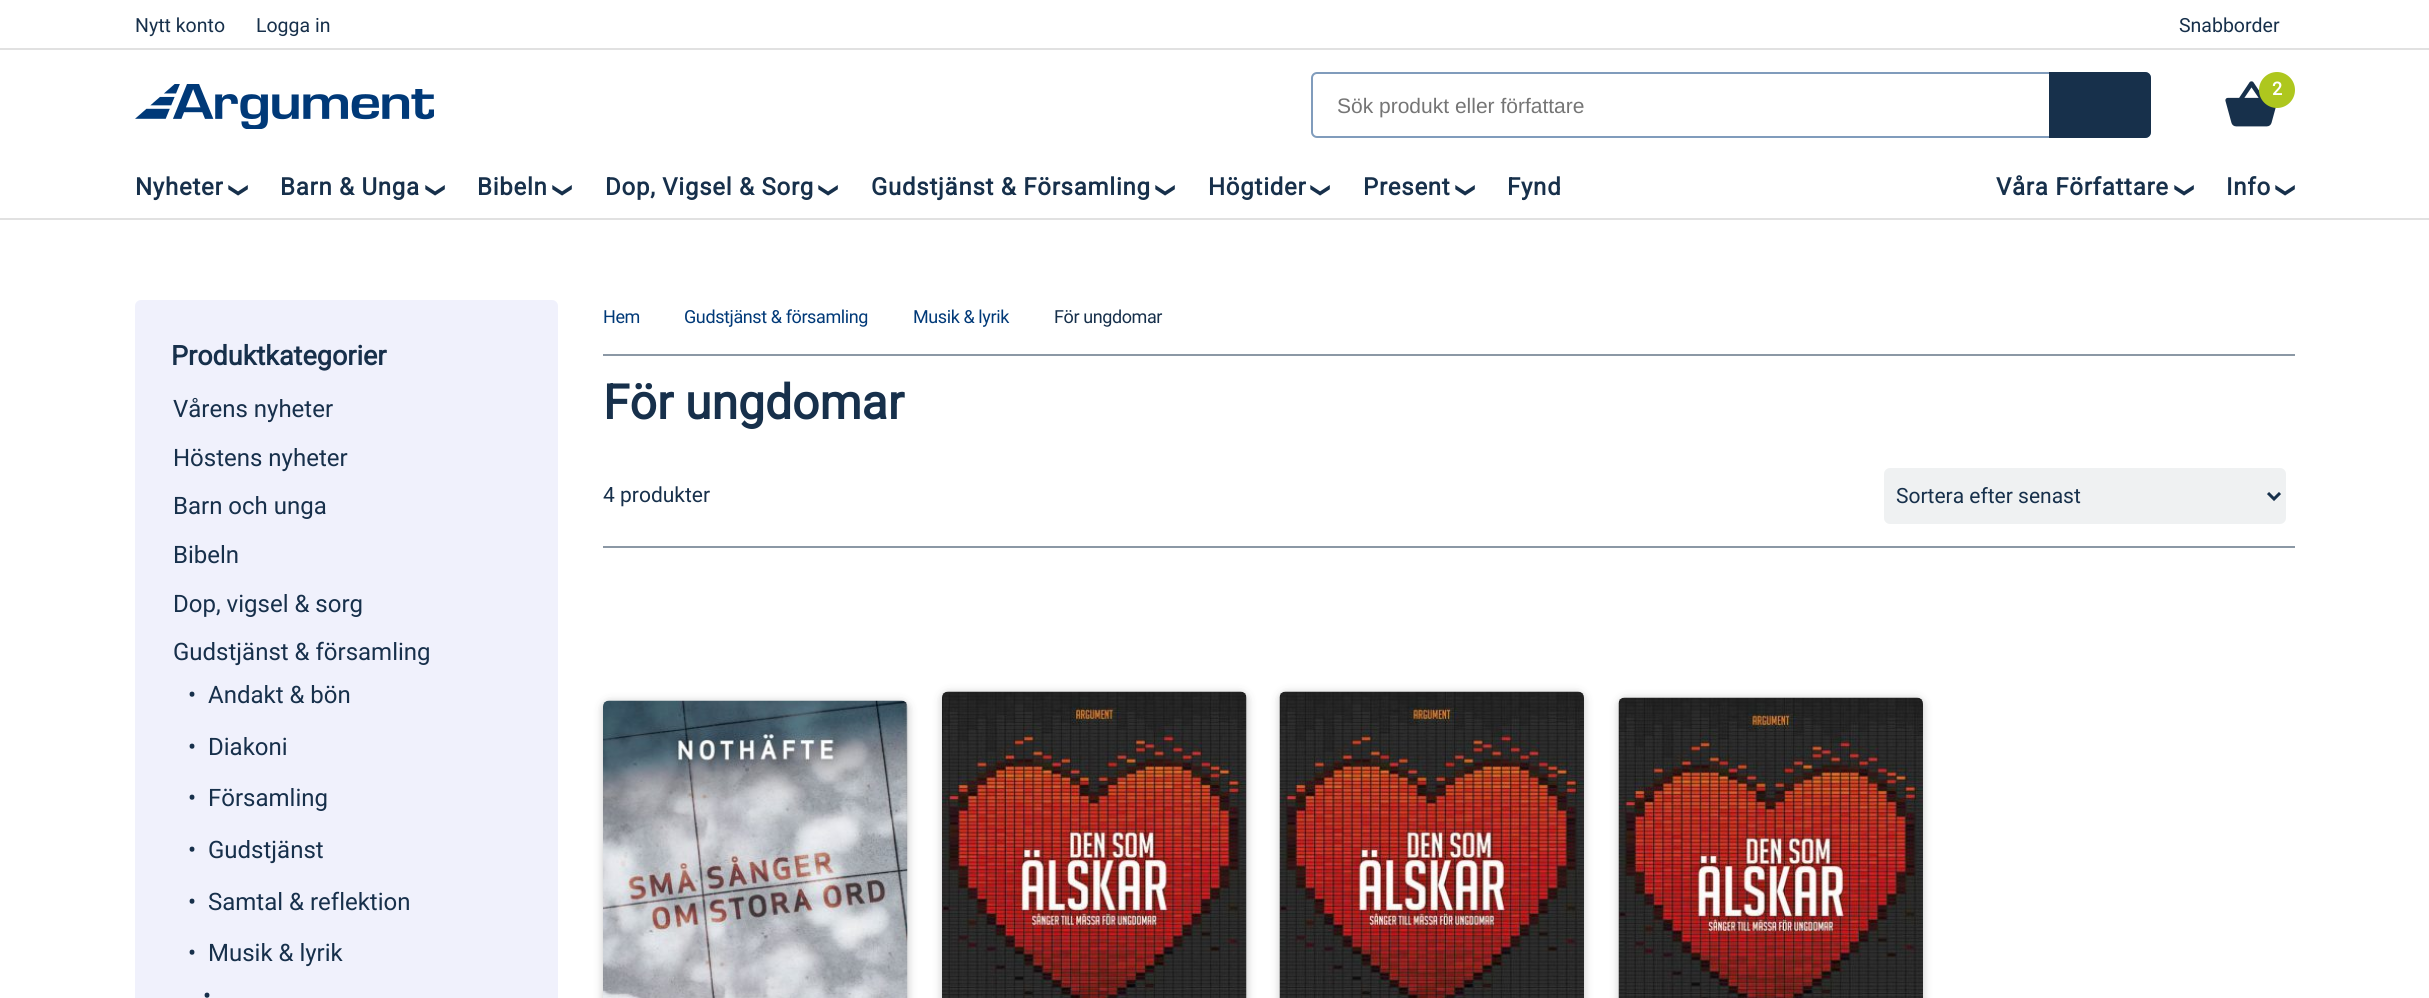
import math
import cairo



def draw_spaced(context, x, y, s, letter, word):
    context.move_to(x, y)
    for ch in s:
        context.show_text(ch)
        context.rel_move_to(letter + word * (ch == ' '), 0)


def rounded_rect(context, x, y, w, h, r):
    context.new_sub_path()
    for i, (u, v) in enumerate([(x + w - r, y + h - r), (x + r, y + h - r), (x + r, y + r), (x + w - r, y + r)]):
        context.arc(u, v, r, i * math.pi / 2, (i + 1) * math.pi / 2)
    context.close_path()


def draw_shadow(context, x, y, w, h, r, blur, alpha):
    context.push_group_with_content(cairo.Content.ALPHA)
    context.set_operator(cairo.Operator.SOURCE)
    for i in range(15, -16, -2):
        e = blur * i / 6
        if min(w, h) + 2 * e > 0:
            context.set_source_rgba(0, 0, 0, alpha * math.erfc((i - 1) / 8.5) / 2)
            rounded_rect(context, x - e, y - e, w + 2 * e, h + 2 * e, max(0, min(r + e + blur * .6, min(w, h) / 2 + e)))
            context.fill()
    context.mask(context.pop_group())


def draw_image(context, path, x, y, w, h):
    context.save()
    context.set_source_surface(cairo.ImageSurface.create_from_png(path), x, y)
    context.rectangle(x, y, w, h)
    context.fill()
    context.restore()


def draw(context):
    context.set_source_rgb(1, 1, 1)
    context.paint()
    context.set_source_rgb(225 / 255, 225 / 255, 225 / 255)
    context.rectangle(0, 48, 2429, 2)
    context.fill()
    context.rectangle(0, 218, 2429, 2)
    context.fill()
    draw_image(context, "images/1.png", 135, 84, 299, 45)
    draw_image(context, "images/2.png", 2225, 81, 51, 46)
    context.set_source_rgb(174 / 255, 199 / 255, 30 / 255)
    context.arc(2277, 90, 18, 0, 2 * math.pi)
    context.fill()
    rounded_rect(context, 1312, 73, 838, 64, 5)
    context.set_source_rgb(128 / 255, 156 / 255, 188 / 255)
    context.stroke()
    context.set_source_rgb(23 / 255, 48 / 255, 75 / 255)
    context.new_path()
    context.move_to(2049, 72)
    context.line_to(2145, 72)
    context.curve_to(2148.5, 72, 2151, 74.5, 2151, 78)
    context.line_to(2151, 132)
    context.curve_to(2151, 135.5, 2148.5, 138, 2145, 138)
    context.line_to(2049, 138)
    context.close_path()
    context.fill()
    context.set_source_rgb(240 / 255, 241 / 255, 252 / 255)
    rounded_rect(context, 135, 300, 423, 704, 6)
    context.fill()
    context.set_source_rgb(139 / 255, 152 / 255, 165 / 255)
    context.rectangle(603, 354, 1692, 2)
    context.fill()
    context.set_source_rgb(239 / 255, 241 / 255, 242 / 255)
    rounded_rect(context, 1884, 468, 402, 56, 6)
    context.fill()
    context.new_path()
    context.move_to(2268, 493)
    context.line_to(2274, 499)
    context.line_to(2280, 493)
    context.set_source_rgb(23 / 255, 48 / 255, 75 / 255)
    context.set_line_width(3)
    context.stroke()
    context.set_source_rgb(139 / 255, 152 / 255, 165 / 255)
    context.rectangle(603, 546, 1692, 2)
    context.fill()
    context.set_source_rgb(35 / 255, 35 / 255, 35 / 255)
    draw_shadow(context, 603, 702, 305, 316, 6, 4.5, 0.25)
    draw_image(context, "images/3.png", 603, 700, 305, 298)
    draw_shadow(context, 942, 693, 305, 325, 6, 4.5, 0.25)
    draw_image(context, "images/4.png", 942, 691, 305, 307)
    draw_shadow(context, 1280, 693, 304, 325, 6, 4.5, 0.25)
    draw_image(context, "images/5.png", 1279, 691, 305, 307)
    draw_shadow(context, 1619, 699, 304, 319, 6, 4.5, 0.25)
    draw_image(context, "images/6.png", 1618, 697, 305, 301)
    context.select_font_face("Roboto")
    context.set_font_size(19.5)
    context.set_source_rgb(23 / 255, 48 / 255, 75 / 255)
    context.move_to(135, 32)
    context.show_text("Nytt konto")
    context.move_to(256, 32)
    context.show_text("Logga in")
    context.move_to(2179, 32)
    context.show_text("Snabborder")
    context.select_font_face("Roboto", cairo.FontSlant.NORMAL, cairo.FontWeight.BOLD)
    context.set_font_size(18)
    context.set_source_rgb(1, 1, 1)
    context.move_to(2272, 95)
    context.show_text("2")
    context.select_font_face("Liberation Sans")
    context.set_font_size(21)
    context.set_source_rgb(117 / 255, 117 / 255, 117 / 255)
    context.move_to(1337, 113)
    context.show_text("Sök produkt eller författare")
    context.select_font_face("Roboto", cairo.FontSlant.NORMAL, cairo.FontWeight.BOLD)
    context.set_font_size(24)
    context.set_source_rgb(23 / 255, 48 / 255, 75 / 255)
    draw_spaced(context, 135, 195, "Nyheter", 0.75, 0)
    context.select_font_face("DejaVu Sans")
    context.set_font_size(19.5)
    context.save()
    context.translate(233, 182)
    context.rotate(90 * math.pi / 180)
    context.move_to(0, 0)
    context.show_text("❯")
    context.restore()
    context.select_font_face("Roboto", cairo.FontSlant.NORMAL, cairo.FontWeight.BOLD)
    context.set_font_size(24)
    draw_spaced(context, 280, 195, "Barn & Unga", 0.75, 0)
    context.select_font_face("DejaVu Sans")
    context.set_font_size(19.5)
    context.save()
    context.translate(430, 182)
    context.rotate(90 * math.pi / 180)
    context.move_to(0, 0)
    context.show_text("❯")
    context.restore()
    context.select_font_face("Roboto", cairo.FontSlant.NORMAL, cairo.FontWeight.BOLD)
    context.set_font_size(24)
    draw_spaced(context, 477, 195, "Bibeln", 0.75, 0)
    context.select_font_face("DejaVu Sans")
    context.set_font_size(19.5)
    context.save()
    context.translate(557, 182)
    context.rotate(90 * math.pi / 180)
    context.move_to(0, 0)
    context.show_text("❯")
    context.restore()
    context.select_font_face("Roboto", cairo.FontSlant.NORMAL, cairo.FontWeight.BOLD)
    context.set_font_size(24)
    draw_spaced(context, 605, 195, "Dop, Vigsel & Sorg", 0.75, 0)
    context.select_font_face("DejaVu Sans")
    context.set_font_size(19.5)
    context.save()
    context.translate(823, 182)
    context.rotate(90 * math.pi / 180)
    context.move_to(0, 0)
    context.show_text("❯")
    context.restore()
    context.select_font_face("Roboto", cairo.FontSlant.NORMAL, cairo.FontWeight.BOLD)
    context.set_font_size(24)
    draw_spaced(context, 871, 195, "Gudstjänst & Församling", 0.75, 0)
    context.select_font_face("DejaVu Sans")
    context.set_font_size(19.5)
    context.save()
    context.translate(1160, 182)
    context.rotate(90 * math.pi / 180)
    context.move_to(0, 0)
    context.show_text("❯")
    context.restore()
    context.select_font_face("Roboto", cairo.FontSlant.NORMAL, cairo.FontWeight.BOLD)
    context.set_font_size(24)
    draw_spaced(context, 1208, 195, "Högtider", 0.75, 0)
    context.select_font_face("DejaVu Sans")
    context.set_font_size(19.5)
    context.save()
    context.translate(1315, 182)
    context.rotate(90 * math.pi / 180)
    context.move_to(0, 0)
    context.show_text("❯")
    context.restore()
    context.select_font_face("Roboto", cairo.FontSlant.NORMAL, cairo.FontWeight.BOLD)
    context.set_font_size(24)
    draw_spaced(context, 1363, 195, "Present", 0.75, 0)
    context.select_font_face("DejaVu Sans")
    context.set_font_size(19.5)
    context.save()
    context.translate(1460, 182)
    context.rotate(90 * math.pi / 180)
    context.move_to(0, 0)
    context.show_text("❯")
    context.restore()
    context.select_font_face("Roboto", cairo.FontSlant.NORMAL, cairo.FontWeight.BOLD)
    context.set_font_size(24)
    draw_spaced(context, 1507, 195, "Fynd", 0.75, 0)
    draw_spaced(context, 1996, 195, "Våra Författare", 0.75, 0)
    context.select_font_face("DejaVu Sans")
    context.set_font_size(19.5)
    context.save()
    context.translate(2179, 182)
    context.rotate(90 * math.pi / 180)
    context.move_to(0, 0)
    context.show_text("❯")
    context.restore()
    context.select_font_face("Roboto", cairo.FontSlant.NORMAL, cairo.FontWeight.BOLD)
    context.set_font_size(24)
    draw_spaced(context, 2226, 195, "Info", 0.75, 0)
    context.select_font_face("DejaVu Sans")
    context.set_font_size(19.5)
    context.save()
    context.translate(2280, 182)
    context.rotate(90 * math.pi / 180)
    context.move_to(0, 0)
    context.show_text("❯")
    context.restore()
    context.select_font_face("Roboto", cairo.FontSlant.NORMAL, cairo.FontWeight.BOLD)
    context.set_font_size(27)
    context.move_to(171, 365)
    context.show_text("Produktkategorier")
    context.select_font_face("Roboto")
    context.set_font_size(24)
    context.move_to(173, 417)
    context.show_text("Vårens nyheter")
    context.move_to(173, 466)
    context.show_text("Höstens nyheter")
    context.move_to(173, 514)
    context.show_text("Barn och unga")
    context.move_to(173, 563)
    context.show_text("Bibeln")
    context.move_to(173, 612)
    context.show_text("Dop, vigsel & sorg")
    context.move_to(173, 660)
    context.show_text("Gudstjänst & församling")
    context.move_to(188, 703)
    context.show_text("•")
    context.move_to(208, 703)
    context.show_text("Andakt & bön")
    context.move_to(188, 755)
    context.show_text("•")
    context.move_to(208, 755)
    context.show_text("Diakoni")
    context.move_to(188, 806)
    context.show_text("•")
    context.move_to(208, 806)
    context.show_text("Församling")
    context.move_to(188, 858)
    context.show_text("•")
    context.move_to(208, 858)
    context.show_text("Gudstjänst")
    context.move_to(188, 910)
    context.show_text("•")
    context.move_to(208, 910)
    context.show_text("Samtal & reflektion")
    context.move_to(188, 961)
    context.show_text("•")
    context.move_to(208, 961)
    context.show_text("Musik & lyrik")
    context.move_to(203, 1004)
    context.show_text("•")
    context.set_font_size(18)
    context.set_source_rgb(0, 57 / 255, 120 / 255)
    draw_spaced(context, 603, 323, "Hem", -0.4, 0)
    draw_spaced(context, 684, 323, "Gudstjänst & församling", -0.4, 0)
    draw_spaced(context, 913, 323, "Musik & lyrik", -0.4, 0)
    context.set_source_rgb(23 / 255, 48 / 255, 75 / 255)
    draw_spaced(context, 1054, 323, "För ungdomar", -0.4, 0)
    context.select_font_face("Roboto", cairo.FontSlant.NORMAL, cairo.FontWeight.BOLD)
    context.set_font_size(48)
    context.move_to(603, 419)
    context.show_text("För ungdomar")
    context.select_font_face("Roboto")
    context.set_font_size(21)
    context.move_to(603, 502)
    context.show_text("4 produkter")
    context.move_to(1896, 503)
    context.show_text("Sortera efter senast")


surface = cairo.ImageSurface(cairo.Format.RGB24, 2429, 998)
context = cairo.Context(surface)
options = cairo.FontOptions()
options.set_hint_metrics(cairo.HintMetrics.OFF)
options.set_hint_style(cairo.HintStyle.NONE)
context.set_font_options(options)
context.set_miter_limit(4)
draw(context)
surface.write_to_png("out.png")
